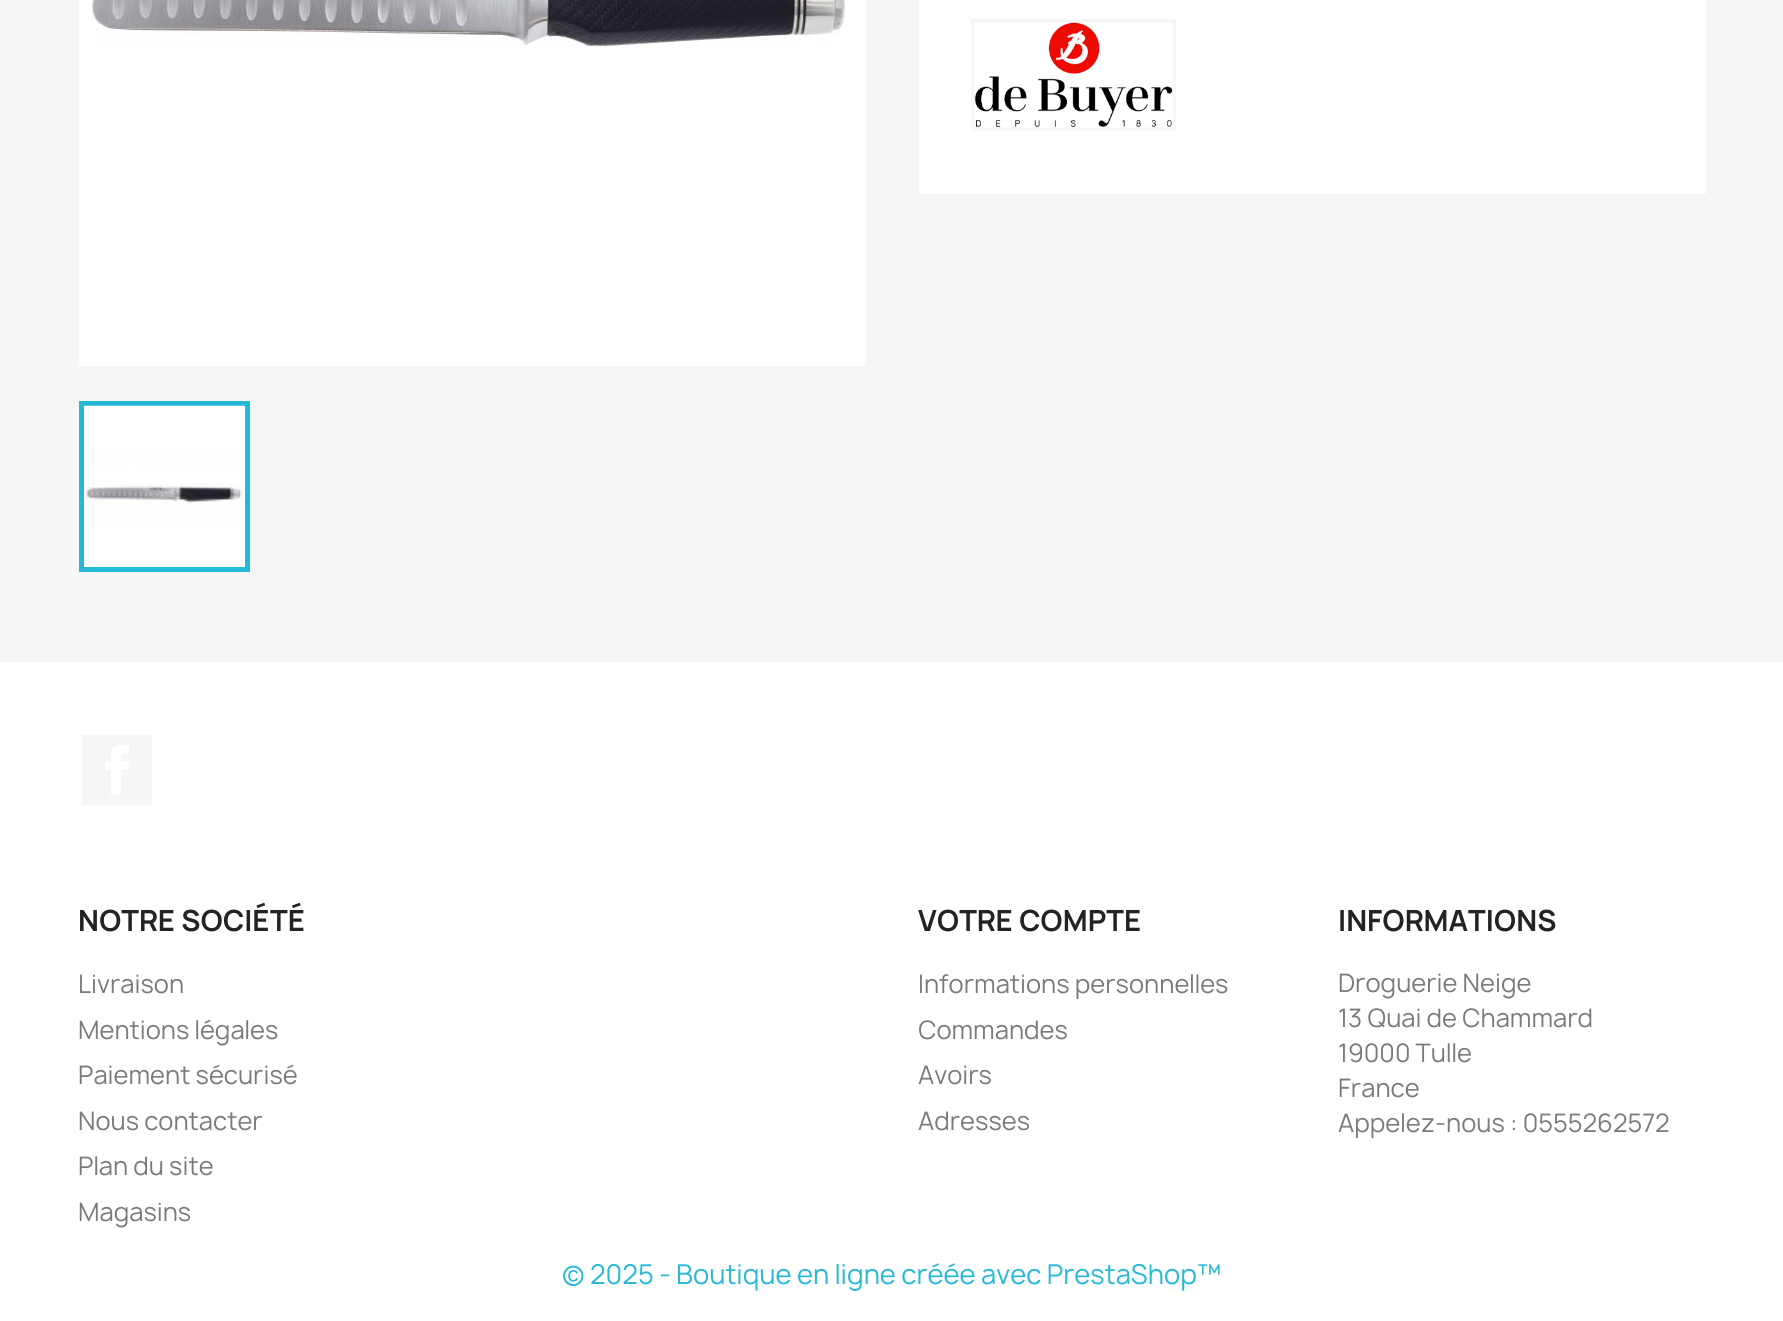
import math
import cairo



def draw_image(context, path, x, y, w, h):
    context.save()
    context.set_source_surface(cairo.ImageSurface.create_from_png(path), x, y)
    context.rectangle(x, y, w, h)
    context.fill()
    context.restore()


def draw(context):
    context.set_source_rgb(1, 1, 1)
    context.paint()
    context.set_source_rgb(246 / 255, 246 / 255, 246 / 255)
    context.rectangle(0, 0, 1783, 662)
    context.fill()
    context.set_source_rgb(1, 1, 1)
    context.rectangle(79, 0, 787, 366)
    context.fill()
    draw_image(context, "images/1.png", 92, 0, 753, 50)
    context.rectangle(81.5, 403.5, 166, 166)
    context.set_source_rgb(36 / 255, 185 / 255, 215 / 255)
    context.set_line_width(5)
    context.stroke()
    draw_image(context, "images/2.png", 84, 405, 161, 162)
    context.set_source_rgb(1, 1, 1)
    context.rectangle(919, 0, 787, 194)
    context.fill()
    context.rectangle(973, 21, 201, 108)
    context.set_source_rgb(246 / 255, 246 / 255, 246 / 255)
    context.set_line_width(4)
    context.stroke()
    draw_image(context, "images/3.png", 974, 22, 199, 106)
    context.rectangle(82, 735, 70, 70)
    context.fill()
    draw_image(context, "images/4.png", 105, 745, 24, 50)
    context.select_font_face("Manrope", cairo.FontSlant.NORMAL, cairo.FontWeight.BOLD)
    context.set_font_size(28)
    context.set_source_rgb(35 / 255, 35 / 255, 35 / 255)
    context.move_to(78, 931)
    context.show_text("NOTRE SOCIÉTÉ")
    context.select_font_face("Manrope")
    context.set_font_size(24.5)
    context.set_source_rgb(122 / 255, 122 / 255, 122 / 255)
    context.move_to(78, 993)
    context.show_text("Livraison")
    context.move_to(78, 1039)
    context.show_text("Mentions légales")
    context.move_to(78, 1084)
    context.show_text("Paiement sécurisé")
    context.move_to(78, 1130)
    context.show_text("Nous contacter")
    context.move_to(78, 1175)
    context.show_text("Plan du site")
    context.move_to(78, 1221)
    context.show_text("Magasins")
    context.select_font_face("Manrope", cairo.FontSlant.NORMAL, cairo.FontWeight.BOLD)
    context.set_font_size(28)
    context.set_source_rgb(35 / 255, 35 / 255, 35 / 255)
    context.move_to(918, 931)
    context.show_text("VOTRE COMPTE")
    context.select_font_face("Manrope")
    context.set_font_size(24.5)
    context.set_source_rgb(122 / 255, 122 / 255, 122 / 255)
    context.move_to(918, 993)
    context.show_text("Informations personnelles")
    context.move_to(918, 1039)
    context.show_text("Commandes")
    context.move_to(918, 1084)
    context.show_text("Avoirs")
    context.move_to(918, 1130)
    context.show_text("Adresses")
    context.select_font_face("Manrope", cairo.FontSlant.NORMAL, cairo.FontWeight.BOLD)
    context.set_font_size(28)
    context.set_source_rgb(35 / 255, 35 / 255, 35 / 255)
    context.move_to(1338, 931)
    context.show_text("INFORMATIONS")
    context.select_font_face("Manrope")
    context.set_font_size(24.5)
    context.set_source_rgb(122 / 255, 122 / 255, 122 / 255)
    context.move_to(1338, 992)
    context.show_text("Droguerie Neige")
    context.move_to(1338, 1027)
    context.show_text("13 Quai de Chammard")
    context.move_to(1338, 1062)
    context.show_text("19000 Tulle")
    context.move_to(1338, 1097)
    context.show_text("France")
    context.move_to(1338, 1132)
    context.show_text("Appelez-nous : 0555262572")
    context.set_font_size(26.25)
    context.set_source_rgb(36 / 255, 185 / 255, 215 / 255)
    context.move_to(562, 1284)
    context.show_text("© 2025 - Boutique en ligne créée avec PrestaShop™")


surface = cairo.ImageSurface(cairo.Format.RGB24, 1783, 1321)
context = cairo.Context(surface)
options = cairo.FontOptions()
options.set_hint_metrics(cairo.HintMetrics.OFF)
options.set_hint_style(cairo.HintStyle.NONE)
context.set_font_options(options)
context.set_miter_limit(4)
draw(context)
surface.write_to_png("out.png")
